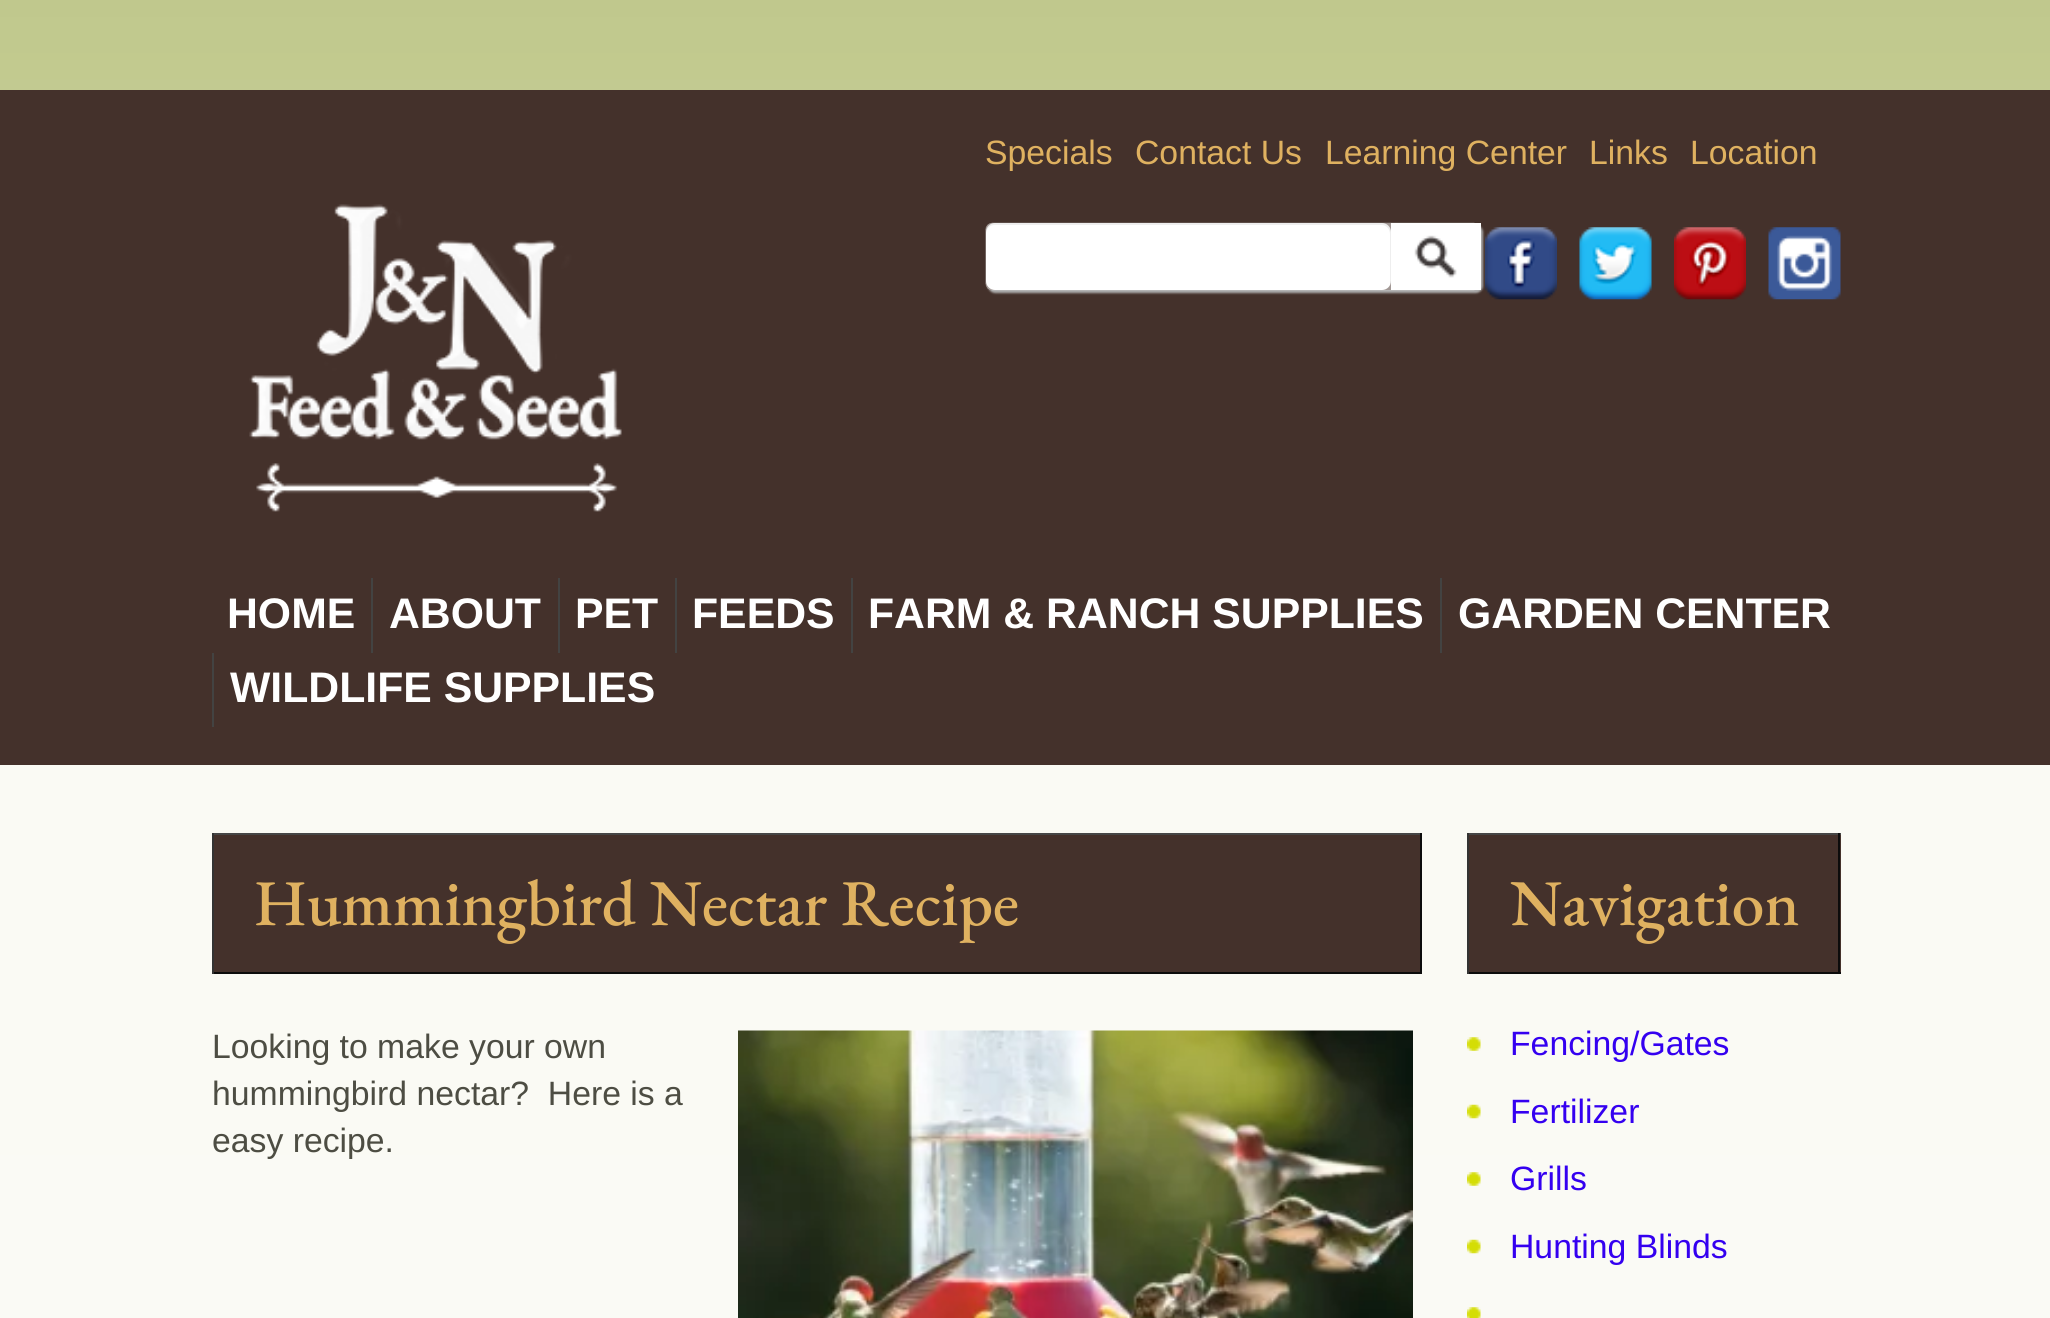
import math
import cairo



def rounded_rect(context, x, y, w, h, r):
    context.new_sub_path()
    for i, (u, v) in enumerate([(x + w - r, y + h - r), (x + r, y + h - r), (x + r, y + r), (x + w - r, y + r)]):
        context.arc(u, v, r, i * math.pi / 2, (i + 1) * math.pi / 2)
    context.close_path()


def draw_shadow(context, x, y, w, h, r, blur, alpha):
    context.push_group_with_content(cairo.Content.ALPHA)
    context.set_operator(cairo.Operator.SOURCE)
    for i in range(15, -16, -2):
        e = blur * i / 6
        if min(w, h) + 2 * e > 0:
            context.set_source_rgba(0, 0, 0, alpha * math.erfc((i - 1) / 8.5) / 2)
            rounded_rect(context, x - e, y - e, w + 2 * e, h + 2 * e, max(0, min(r + e + blur * .6, min(w, h) / 2 + e)))
            context.fill()
    context.mask(context.pop_group())


def draw_image(context, path, x, y, w, h):
    context.save()
    context.set_source_surface(cairo.ImageSurface.create_from_png(path), x, y)
    context.rectangle(x, y, w, h)
    context.fill()
    context.restore()


def draw(context):
    context.set_source_rgb(1, 1, 1)
    context.paint()
    draw_image(context, "images/1.png", 0, 0, 2050, 90)
    gradient = cairo.LinearGradient(1026, 90, 1026, 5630)
    gradient.add_color_stop_rgba(0, 249 / 255, 249 / 255, 242 / 255, 1)
    gradient.add_color_stop_rgba(1, 1, 1, 1, 1)
    context.set_source(gradient)
    context.rectangle(0, 765, 2050, 553)
    context.fill()
    context.set_source_rgb(68 / 255, 49 / 255, 43 / 255)
    context.rectangle(0, 90, 2050, 675)
    context.fill()
    draw_image(context, "images/4.png", 1485, 227, 72, 73)
    context.save()
    context.set_fill_rule(cairo.FillRule.EVEN_ODD)
    context.new_path()
    context.move_to(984, 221)
    context.line_to(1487, 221)
    context.line_to(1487, 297)
    context.line_to(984, 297)
    context.close_path()
    context.move_to(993, 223)
    context.line_to(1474, 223)
    context.curve_to(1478, 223, 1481, 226, 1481, 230)
    context.line_to(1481, 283)
    context.curve_to(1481, 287, 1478, 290, 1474, 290)
    context.line_to(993, 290)
    context.curve_to(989, 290, 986, 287, 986, 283)
    context.line_to(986, 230)
    context.curve_to(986, 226, 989, 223, 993, 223)
    context.close_path()
    context.clip()
    context.set_source_rgb(170 / 255, 170 / 255, 170 / 255)
    draw_shadow(context, 988, 225, 495, 68, 7, 1, 1)
    context.restore()
    draw_image(context, "images/2.png", 985, 222, 490, 69)
    context.set_source_rgb(1, 1, 1)
    rounded_rect(context, 986, 223, 405, 67, 9)
    context.fill()
    context.set_source_rgba(0, 0, 0, 0.07)
    context.new_path()
    context.move_to(994, 225)
    context.line_to(1382, 225)
    context.curve_to(1386, 225, 1390, 229, 1390, 234)
    context.line_to(1390, 285)
    context.curve_to(1391, 284, 1391, 283, 1391, 281)
    context.line_to(1391, 232)
    context.curve_to(1391, 227, 1387, 223, 1382, 223)
    context.line_to(995, 223)
    context.curve_to(990, 223, 986, 227, 986, 232)
    context.line_to(986, 234)
    context.curve_to(986, 229, 990, 225, 994, 225)
    context.close_path()
    context.fill()
    context.set_source_rgb(1, 1, 1)
    context.rectangle(1391, 223, 90, 67)
    context.fill()
    draw_image(context, "images/3.png", 1414, 235, 43, 43)
    draw_image(context, "images/5.png", 1579, 227, 73, 73)
    draw_image(context, "images/6.png", 1674, 227, 72, 73)
    draw_image(context, "images/7.png", 1768, 227, 73, 73)
    draw_image(context, "images/8.png", 249, 204, 373, 308)
    context.set_source_rgb(67 / 255, 67 / 255, 66 / 255)
    context.rectangle(371, 578, 2, 75)
    context.fill()
    context.rectangle(558, 578, 2, 75)
    context.fill()
    context.rectangle(675, 578, 2, 75)
    context.fill()
    context.rectangle(851, 578, 2, 75)
    context.fill()
    context.rectangle(1440, 578, 2, 75)
    context.fill()
    context.rectangle(212, 653, 2, 74)
    context.fill()
    context.set_source_rgb(68 / 255, 49 / 255, 43 / 255)
    context.rectangle(214, 835, 1206, 137)
    context.fill()
    context.set_source_rgb(70 / 255, 70 / 255, 70 / 255)
    context.rectangle(212, 833, 1210, 2)
    context.fill()
    context.set_source_rgb(12 / 255, 12 / 255, 12 / 255)
    context.rectangle(1420, 833, 2, 141)
    context.fill()
    context.rectangle(212, 972, 1210, 2)
    context.fill()
    context.set_source_rgb(51 / 255, 51 / 255, 51 / 255)
    context.rectangle(212, 833, 2, 141)
    context.fill()
    draw_image(context, "images/9.png", 738, 1030, 675, 288)
    context.set_source_rgb(68 / 255, 49 / 255, 43 / 255)
    context.rectangle(1469, 835, 372, 137)
    context.fill()
    context.set_source_rgb(70 / 255, 70 / 255, 70 / 255)
    context.rectangle(1467, 833, 374, 2)
    context.fill()
    context.set_source_rgb(12 / 255, 12 / 255, 12 / 255)
    context.rectangle(1838, 833, 2, 141)
    context.fill()
    context.rectangle(1467, 972, 374, 2)
    context.fill()
    context.set_source_rgb(51 / 255, 51 / 255, 51 / 255)
    context.rectangle(1467, 833, 2, 141)
    context.fill()
    draw_image(context, "images/10.png", 1467, 1037, 14, 14)
    draw_image(context, "images/11.png", 1467, 1104, 14, 15)
    draw_image(context, "images/12.png", 1467, 1172, 14, 14)
    draw_image(context, "images/13.png", 1467, 1239, 14, 15)
    draw_image(context, "images/14.png", 1467, 1307, 14, 11)
    context.select_font_face("Liberation Sans")
    context.set_font_size(33.75)
    context.set_source_rgb(223 / 255, 177 / 255, 96 / 255)
    context.move_to(985, 164)
    context.show_text("Specials")
    context.move_to(1135, 164)
    context.show_text("Contact Us")
    context.move_to(1325, 164)
    context.show_text("Learning Center")
    context.move_to(1589, 164)
    context.show_text("Links")
    context.move_to(1690, 164)
    context.show_text("Location")
    context.select_font_face("Liberation Sans", cairo.FontSlant.NORMAL, cairo.FontWeight.BOLD)
    context.set_font_size(42.75)
    context.set_source_rgb(1, 1, 1)
    context.move_to(227, 628)
    context.show_text("HOME")
    context.move_to(389, 628)
    context.show_text("ABOUT")
    context.move_to(575, 628)
    context.show_text("PET")
    context.move_to(692, 628)
    context.show_text("FEEDS")
    context.move_to(868, 628)
    context.show_text("FARM & RANCH SUPPLIES")
    context.move_to(1458, 628)
    context.show_text("GARDEN CENTER")
    context.move_to(230, 702)
    context.show_text("WILDLIFE SUPPLIES")
    context.select_font_face("EB Garamond Medium")
    context.set_font_size(65.25)
    context.set_source_rgb(223 / 255, 177 / 255, 96 / 255)
    context.move_to(254, 925)
    context.show_text("Hummingbird Nectar Recipe")
    context.select_font_face("Liberation Sans")
    context.set_font_size(33.75)
    context.set_source_rgb(77 / 255, 77 / 255, 67 / 255)
    context.move_to(212, 1058)
    context.show_text("Looking to make your own")
    context.move_to(212, 1105)
    context.show_text("hummingbird nectar?  Here is a")
    context.move_to(212, 1152)
    context.show_text("easy recipe.")
    context.select_font_face("EB Garamond Medium")
    context.set_font_size(65.25)
    context.set_source_rgb(223 / 255, 177 / 255, 96 / 255)
    context.move_to(1510, 925)
    context.show_text("Navigation")
    context.select_font_face("Liberation Sans")
    context.set_font_size(33.75)
    context.set_source_rgb(52 / 255, 0, 240 / 255)
    context.move_to(1510, 1055)
    context.show_text("Fencing/Gates")
    context.move_to(1510, 1123)
    context.show_text("Fertilizer")
    context.move_to(1510, 1190)
    context.show_text("Grills")
    context.move_to(1510, 1258)
    context.show_text("Hunting Blinds")


surface = cairo.ImageSurface(cairo.Format.RGB24, 2050, 1318)
context = cairo.Context(surface)
options = cairo.FontOptions()
options.set_hint_metrics(cairo.HintMetrics.OFF)
options.set_hint_style(cairo.HintStyle.NONE)
context.set_font_options(options)
context.set_miter_limit(4)
draw(context)
surface.write_to_png("out.png")
